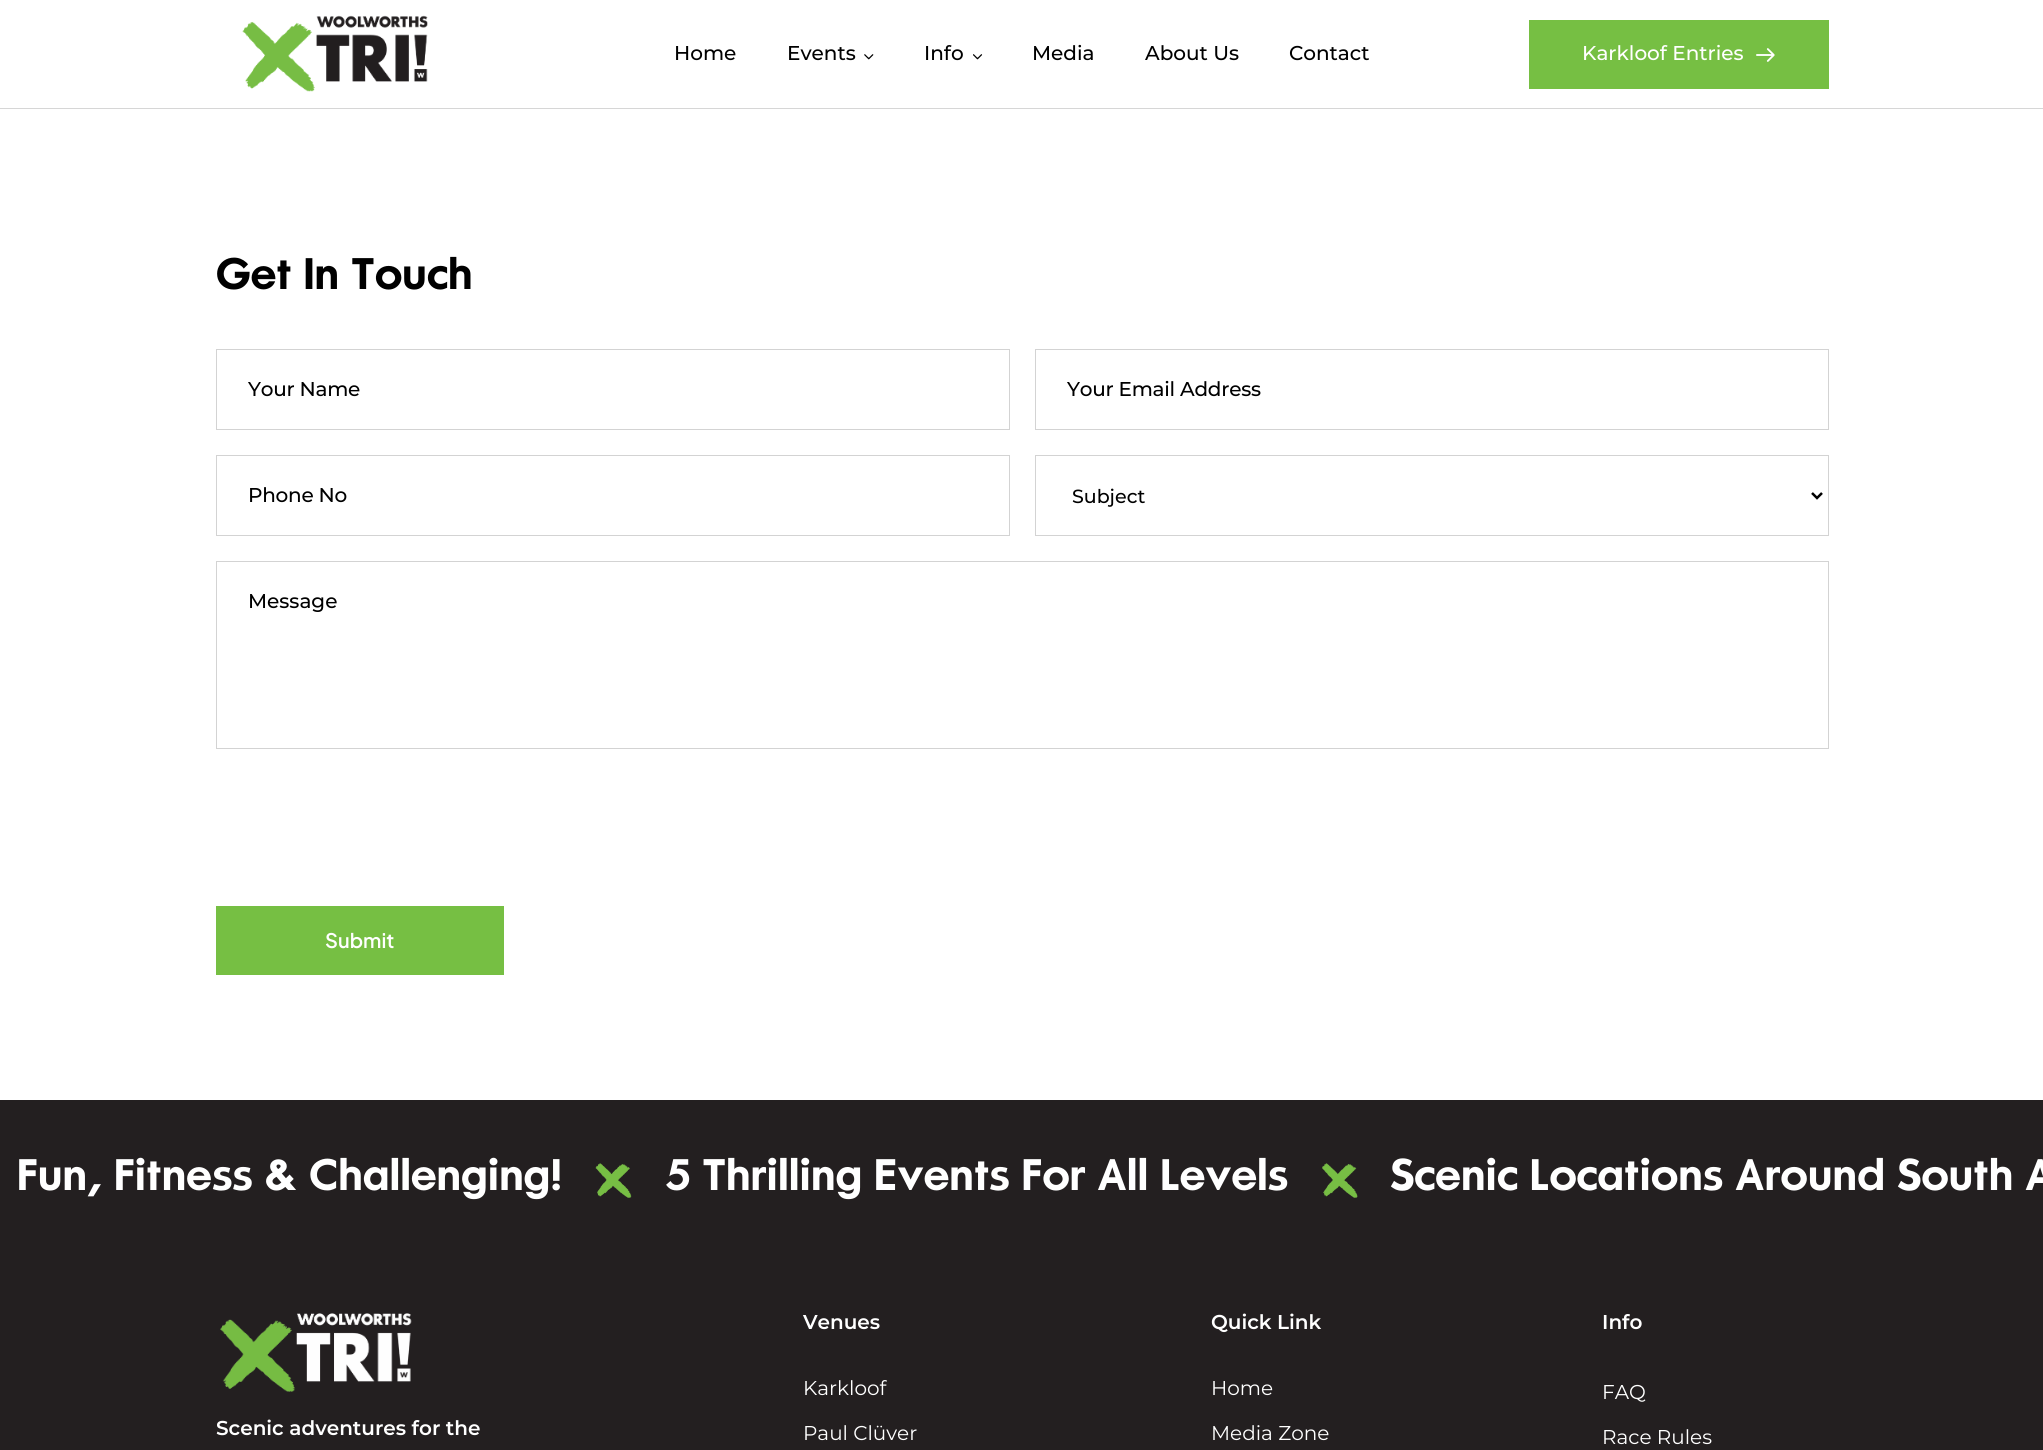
import math
import cairo



def draw_spaced(context, x, y, s, letter, word):
    context.move_to(x, y)
    for ch in s:
        context.show_text(ch)
        context.rel_move_to(letter + word * (ch == ' '), 0)


def draw_image(context, path, x, y, w, h):
    context.save()
    context.set_source_surface(cairo.ImageSurface.create_from_png(path), x, y)
    context.rectangle(x, y, w, h)
    context.fill()
    context.restore()


def draw(context):
    context.set_source_rgb(1, 1, 1)
    context.paint()
    context.set_source_rgb(214 / 255, 214 / 255, 214 / 255)
    context.rectangle(0, 108, 2043, 1)
    context.fill()
    draw_image(context, "images/1.png", 242, 15, 186, 77)
    draw_image(context, "images/2.png", 864, 54, 10, 6)
    draw_image(context, "images/3.png", 973, 54, 10, 6)
    context.set_source_rgb(118 / 255, 191 / 255, 67 / 255)
    context.rectangle(1529, 20, 300, 69)
    context.fill()
    draw_image(context, "images/4.png", 1756, 48, 19, 14)
    context.rectangle(216.5, 349.5, 793, 80)
    context.set_source_rgb(211 / 255, 211 / 255, 211 / 255)
    context.set_line_width(1)
    context.stroke()
    context.rectangle(1035.5, 349.5, 793, 80)
    context.stroke()
    context.rectangle(216.5, 455.5, 793, 80)
    context.stroke()
    context.rectangle(1035.5, 455.5, 793, 80)
    context.stroke()
    context.new_path()
    context.move_to(1812, 493)
    context.line_to(1817, 498)
    context.line_to(1822, 493)
    context.set_source_rgb(0, 0, 0)
    context.set_line_width(2.5)
    context.stroke()
    context.rectangle(216.5, 561.5, 1612, 187)
    context.set_source_rgb(211 / 255, 211 / 255, 211 / 255)
    context.set_line_width(1)
    context.stroke()
    context.set_source_rgb(118 / 255, 191 / 255, 67 / 255)
    context.rectangle(216, 906, 288, 69)
    context.fill()
    context.set_source_rgb(35 / 255, 31 / 255, 32 / 255)
    context.rectangle(0, 1100, 2043, 350)
    context.fill()
    draw_image(context, "images/5.png", 595, 1163, 37, 35)
    draw_image(context, "images/6.png", 1322, 1163, 36, 35)
    draw_image(context, "images/7.png", 220, 1313, 192, 79)
    context.select_font_face("Montserrat Medium")
    context.set_font_size(20)
    context.set_source_rgb(0, 0, 0)
    context.move_to(674, 60)
    context.show_text("Home")
    context.move_to(787, 60)
    context.show_text("Events")
    context.move_to(924, 60)
    context.show_text("Info")
    context.move_to(1032, 60)
    context.show_text("Media")
    context.move_to(1145, 60)
    context.show_text("About Us")
    context.move_to(1289, 60)
    context.show_text("Contact")
    context.set_source_rgb(1, 1, 1)
    context.move_to(1582, 60)
    context.show_text("Karkloof Entries")
    context.select_font_face("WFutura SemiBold")
    context.set_font_size(43.75)
    context.set_source_rgb(0, 0, 0)
    context.move_to(216, 289)
    context.show_text("Get In Touch")
    context.select_font_face("Montserrat Medium")
    context.set_font_size(20)
    draw_spaced(context, 248, 396, "Your Name", -0.25, 0)
    draw_spaced(context, 1067, 396, "Your Email Address", -0.25, 0)
    draw_spaced(context, 248, 502, "Phone No", -0.25, 0)
    context.set_font_size(19)
    context.move_to(1072, 503)
    context.show_text("Subject")
    context.set_font_size(20)
    context.move_to(248, 608)
    context.show_text("Message")
    context.select_font_face("Plus Jakarta Sans SemiBold")
    context.set_source_rgb(1, 1, 1)
    context.move_to(325, 948)
    context.show_text("Submit")
    context.select_font_face("WFutura SemiBold")
    context.set_font_size(43.75)
    context.move_to(17, 1190)
    context.show_text("Fun, Fitness & Challenging!")
    context.move_to(665, 1190)
    context.show_text("5 Thrilling Events For All Levels")
    context.move_to(1390, 1190)
    context.show_text("Scenic Locations Around South A")
    context.select_font_face("Montserrat SemiBold")
    context.set_font_size(20)
    context.move_to(216, 1435)
    context.show_text("Scenic adventures for the")
    context.move_to(803, 1329)
    context.show_text("Venues")
    context.select_font_face("Montserrat")
    context.move_to(803, 1395)
    context.show_text("Karkloof")
    context.move_to(803, 1440)
    context.show_text("Paul Clüver")
    context.select_font_face("Montserrat SemiBold")
    context.move_to(1211, 1329)
    context.show_text("Quick Link")
    context.select_font_face("Montserrat")
    context.move_to(1211, 1395)
    context.show_text("Home")
    context.move_to(1211, 1440)
    context.show_text("Media Zone")
    context.select_font_face("Montserrat SemiBold")
    context.move_to(1602, 1329)
    context.show_text("Info")
    context.select_font_face("Montserrat")
    context.move_to(1602, 1399)
    context.show_text("FAQ")
    context.move_to(1602, 1444)
    context.show_text("Race Rules")


surface = cairo.ImageSurface(cairo.Format.RGB24, 2043, 1450)
context = cairo.Context(surface)
options = cairo.FontOptions()
options.set_hint_metrics(cairo.HintMetrics.OFF)
options.set_hint_style(cairo.HintStyle.NONE)
context.set_font_options(options)
context.set_miter_limit(4)
draw(context)
surface.write_to_png("out.png")
